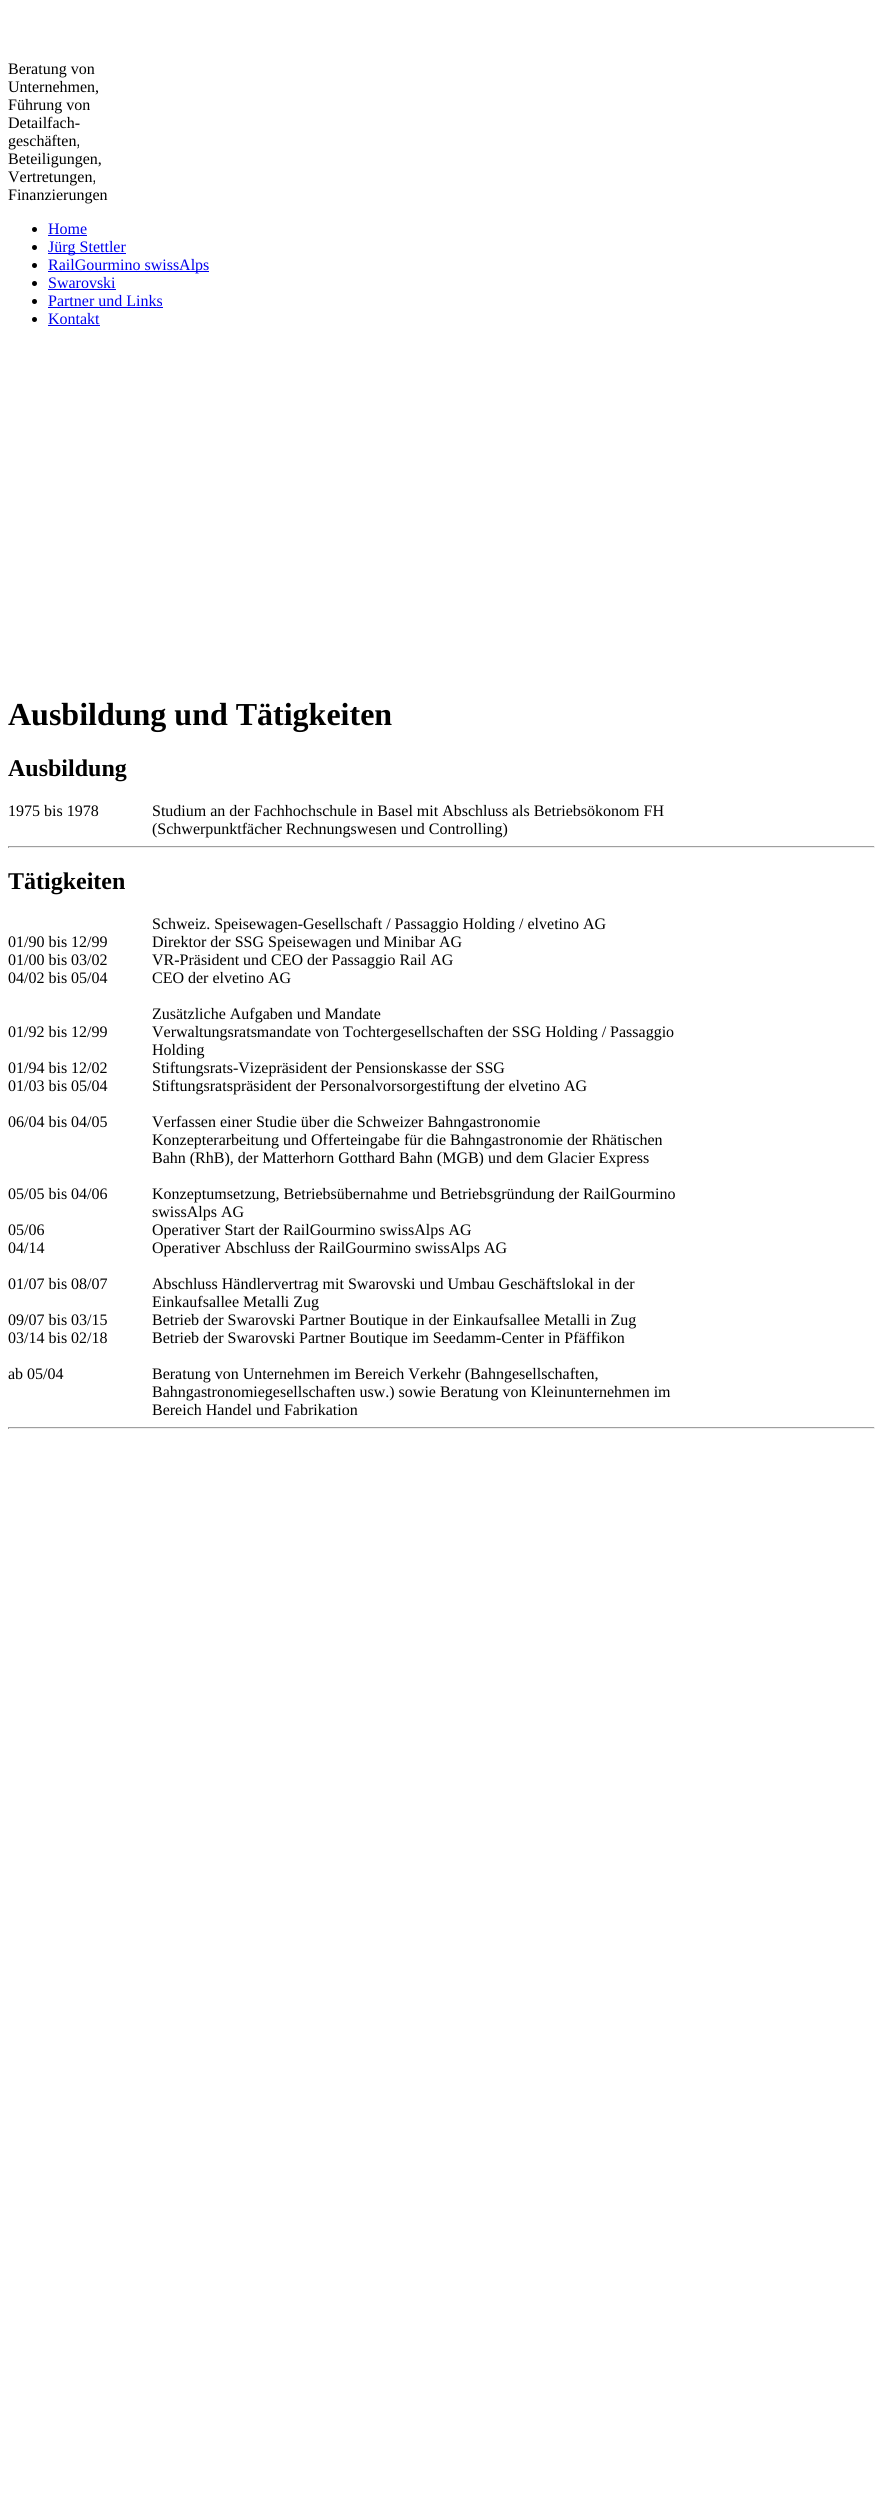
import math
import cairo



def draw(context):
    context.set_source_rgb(1, 1, 1)
    context.paint()
    context.set_source_rgb(0, 0, 0)
    context.arc(34.5, 229.5, 2.5, 0, 2 * math.pi)
    context.fill()
    context.set_source_rgb(0, 0, 238 / 255)
    context.rectangle(48, 235, 39, 1)
    context.fill()
    context.set_source_rgb(0, 0, 0)
    context.arc(34.5, 247.5, 2.5, 0, 2 * math.pi)
    context.fill()
    context.set_source_rgb(0, 0, 238 / 255)
    context.rectangle(48, 253, 78, 1)
    context.fill()
    context.set_source_rgb(0, 0, 0)
    context.arc(34.5, 265.5, 2.5, 0, 2 * math.pi)
    context.fill()
    context.set_source_rgb(0, 0, 238 / 255)
    context.rectangle(48, 271, 161, 1)
    context.fill()
    context.set_source_rgb(0, 0, 0)
    context.arc(34.5, 283.5, 2.5, 0, 2 * math.pi)
    context.fill()
    context.set_source_rgb(0, 0, 238 / 255)
    context.rectangle(48, 289, 68, 1)
    context.fill()
    context.set_source_rgb(0, 0, 0)
    context.arc(34.5, 301.5, 2.5, 0, 2 * math.pi)
    context.fill()
    context.set_source_rgb(0, 0, 238 / 255)
    context.rectangle(48, 307, 115, 1)
    context.fill()
    context.set_source_rgb(0, 0, 0)
    context.arc(34.5, 319.5, 2.5, 0, 2 * math.pi)
    context.fill()
    context.set_source_rgb(0, 0, 238 / 255)
    context.rectangle(48, 325, 52, 1)
    context.fill()
    context.set_source_rgb(159 / 255, 159 / 255, 159 / 255)
    context.rectangle(8, 846, 867, 1)
    context.fill()
    context.set_source_rgb(238 / 255, 238 / 255, 238 / 255)
    context.rectangle(874, 846, 1, 2)
    context.fill()
    context.rectangle(8, 847, 867, 1)
    context.fill()
    context.set_source_rgb(159 / 255, 159 / 255, 159 / 255)
    context.rectangle(8, 846, 1, 2)
    context.fill()
    context.rectangle(8, 1427, 867, 1)
    context.fill()
    context.set_source_rgb(238 / 255, 238 / 255, 238 / 255)
    context.rectangle(874, 1427, 1, 2)
    context.fill()
    context.rectangle(8, 1428, 867, 1)
    context.fill()
    context.set_source_rgb(159 / 255, 159 / 255, 159 / 255)
    context.rectangle(8, 1427, 1, 2)
    context.fill()
    context.select_font_face("Liberation Serif")
    context.set_font_size(16)
    context.set_source_rgb(0, 0, 0)
    context.move_to(8, 74)
    context.show_text("Beratung von")
    context.move_to(8, 92)
    context.show_text("Unternehmen,")
    context.move_to(8, 110)
    context.show_text("Führung von")
    context.move_to(8, 128)
    context.show_text("Detailfach-")
    context.move_to(8, 146)
    context.show_text("geschäften,")
    context.move_to(8, 164)
    context.show_text("Beteiligungen,")
    context.move_to(8, 182)
    context.show_text("Vertretungen,")
    context.move_to(8, 200)
    context.show_text("Finanzierungen")
    context.set_source_rgb(0, 0, 238 / 255)
    context.move_to(48, 234)
    context.show_text("Home")
    context.move_to(48, 252)
    context.show_text("Jürg Stettler")
    context.move_to(48, 270)
    context.show_text("RailGourmino swissAlps")
    context.move_to(48, 288)
    context.show_text("Swarovski")
    context.move_to(48, 306)
    context.show_text("Partner und Links")
    context.move_to(48, 324)
    context.show_text("Kontakt")
    context.select_font_face("Liberation Serif", cairo.FontSlant.NORMAL, cairo.FontWeight.BOLD)
    context.set_font_size(32)
    context.set_source_rgb(0, 0, 0)
    context.move_to(8, 725)
    context.show_text("Ausbildung und Tätigkeiten")
    context.set_font_size(24)
    context.move_to(8, 776)
    context.show_text("Ausbildung")
    context.select_font_face("Liberation Serif")
    context.set_font_size(16)
    context.move_to(8, 816)
    context.show_text("1975 bis 1978")
    context.move_to(152, 816)
    context.show_text("Studium an der Fachhochschule in Basel mit Abschluss als Betriebsökonom FH")
    context.move_to(152, 834)
    context.show_text("(Schwerpunktfächer Rechnungswesen und Controlling)")
    context.select_font_face("Liberation Serif", cairo.FontSlant.NORMAL, cairo.FontWeight.BOLD)
    context.set_font_size(24)
    context.move_to(8, 889)
    context.show_text("Tätigkeiten")
    context.select_font_face("Liberation Serif")
    context.set_font_size(16)
    context.move_to(152, 929)
    context.show_text("Schweiz. Speisewagen-Gesellschaft / Passaggio Holding / elvetino AG")
    context.move_to(8, 947)
    context.show_text("01/90 bis 12/99")
    context.move_to(152, 947)
    context.show_text("Direktor der SSG Speisewagen und Minibar AG")
    context.move_to(8, 965)
    context.show_text("01/00 bis 03/02")
    context.move_to(152, 965)
    context.show_text("VR-Präsident und CEO der Passaggio Rail AG")
    context.move_to(8, 983)
    context.show_text("04/02 bis 05/04")
    context.move_to(152, 983)
    context.show_text("CEO der elvetino AG")
    context.move_to(152, 1019)
    context.show_text("Zusätzliche Aufgaben und Mandate")
    context.move_to(8, 1037)
    context.show_text("01/92 bis 12/99")
    context.move_to(152, 1037)
    context.show_text("Verwaltungsratsmandate von Tochtergesellschaften der SSG Holding / Passaggio")
    context.move_to(152, 1055)
    context.show_text("Holding")
    context.move_to(8, 1073)
    context.show_text("01/94 bis 12/02")
    context.move_to(152, 1073)
    context.show_text("Stiftungsrats-Vizepräsident der Pensionskasse der SSG")
    context.move_to(8, 1091)
    context.show_text("01/03 bis 05/04")
    context.move_to(152, 1091)
    context.show_text("Stiftungsratspräsident der Personalvorsorgestiftung der elvetino AG")
    context.move_to(8, 1127)
    context.show_text("06/04 bis 04/05")
    context.move_to(152, 1127)
    context.show_text("Verfassen einer Studie über die Schweizer Bahngastronomie")
    context.move_to(152, 1145)
    context.show_text("Konzepterarbeitung und Offerteingabe für die Bahngastronomie der Rhätischen")
    context.move_to(152, 1163)
    context.show_text("Bahn (RhB), der Matterhorn Gotthard Bahn (MGB) und dem Glacier Express")
    context.move_to(8, 1199)
    context.show_text("05/05 bis 04/06")
    context.move_to(152, 1199)
    context.show_text("Konzeptumsetzung, Betriebsübernahme und Betriebsgründung der RailGourmino")
    context.move_to(152, 1217)
    context.show_text("swissAlps AG")
    context.move_to(8, 1235)
    context.show_text("05/06")
    context.move_to(152, 1235)
    context.show_text("Operativer Start der RailGourmino swissAlps AG")
    context.move_to(8, 1253)
    context.show_text("04/14")
    context.move_to(152, 1253)
    context.show_text("Operativer Abschluss der RailGourmino swissAlps AG")
    context.move_to(8, 1289)
    context.show_text("01/07 bis 08/07")
    context.move_to(152, 1289)
    context.show_text("Abschluss Händlervertrag mit Swarovski und Umbau Geschäftslokal in der")
    context.move_to(152, 1307)
    context.show_text("Einkaufsallee Metalli Zug")
    context.move_to(8, 1325)
    context.show_text("09/07 bis 03/15")
    context.move_to(152, 1325)
    context.show_text("Betrieb der Swarovski Partner Boutique in der Einkaufsallee Metalli in Zug")
    context.move_to(8, 1343)
    context.show_text("03/14 bis 02/18")
    context.move_to(152, 1343)
    context.show_text("Betrieb der Swarovski Partner Boutique im Seedamm-Center in Pfäffikon")
    context.move_to(8, 1379)
    context.show_text("ab 05/04")
    context.move_to(152, 1379)
    context.show_text("Beratung von Unternehmen im Bereich Verkehr (Bahngesellschaften,")
    context.move_to(152, 1397)
    context.show_text("Bahngastronomiegesellschaften usw.) sowie Beratung von Kleinunternehmen im")
    context.move_to(152, 1415)
    context.show_text("Bereich Handel und Fabrikation")


surface = cairo.ImageSurface(cairo.Format.RGB24, 883, 2517)
context = cairo.Context(surface)
options = cairo.FontOptions()
options.set_hint_metrics(cairo.HintMetrics.OFF)
options.set_hint_style(cairo.HintStyle.NONE)
context.set_font_options(options)
context.set_miter_limit(4)
draw(context)
surface.write_to_png("out.png")
